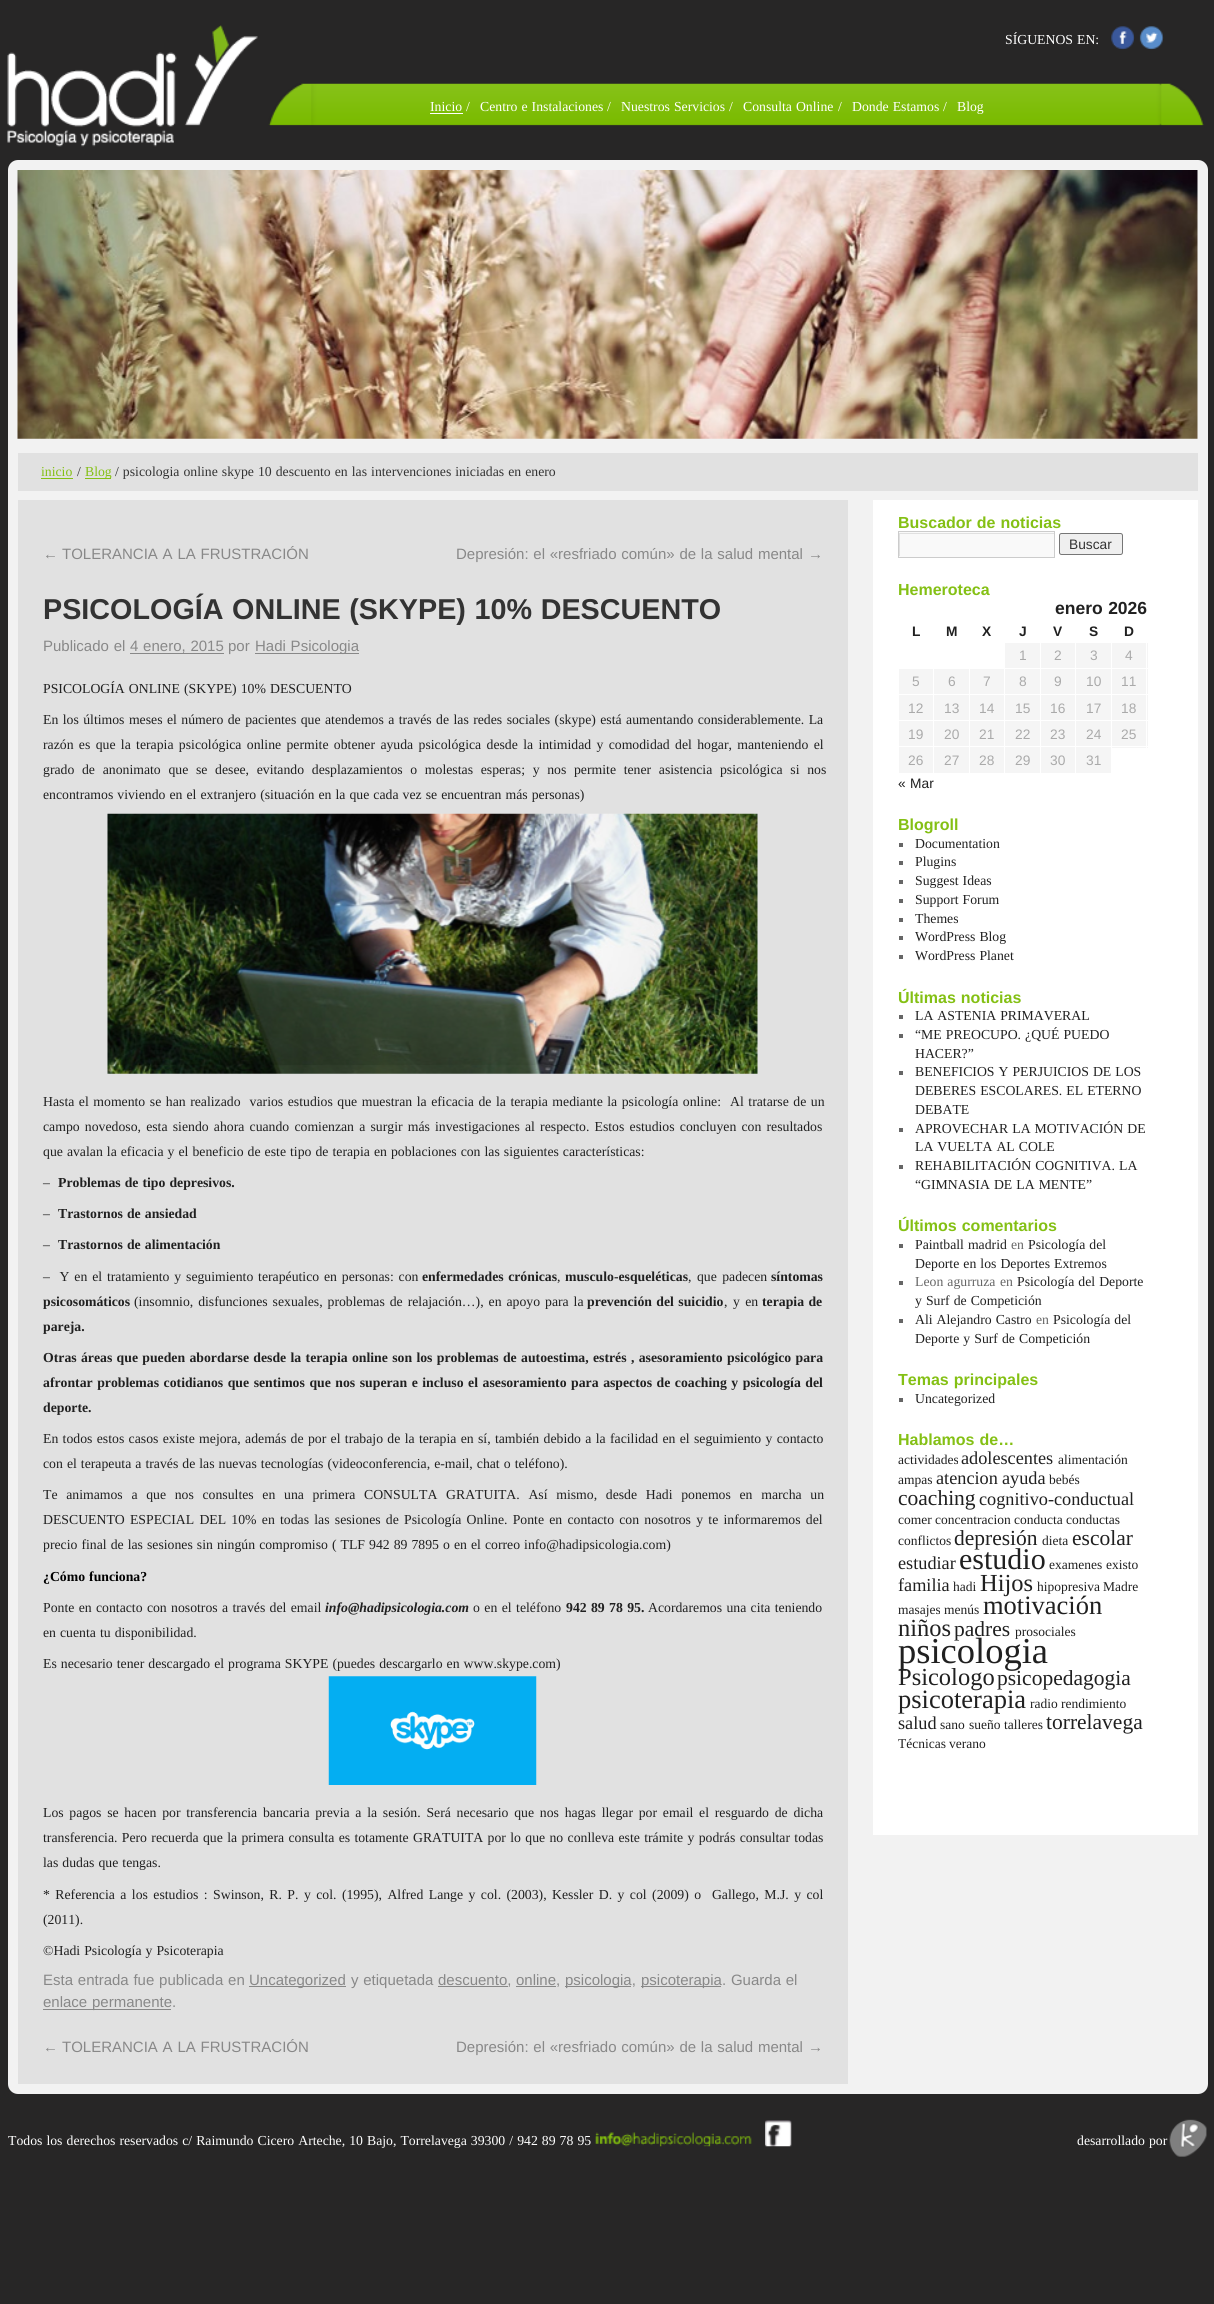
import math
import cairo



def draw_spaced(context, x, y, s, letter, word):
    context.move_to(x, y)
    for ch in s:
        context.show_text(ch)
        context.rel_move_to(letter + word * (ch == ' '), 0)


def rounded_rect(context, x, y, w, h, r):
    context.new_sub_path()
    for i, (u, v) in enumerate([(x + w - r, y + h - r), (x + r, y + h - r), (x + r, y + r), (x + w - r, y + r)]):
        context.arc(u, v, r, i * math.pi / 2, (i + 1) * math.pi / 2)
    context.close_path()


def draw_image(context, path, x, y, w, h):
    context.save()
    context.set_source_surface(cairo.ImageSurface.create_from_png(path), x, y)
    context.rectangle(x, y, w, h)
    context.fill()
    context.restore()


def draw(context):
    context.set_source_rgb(39 / 255, 38 / 255, 38 / 255)
    context.paint()
    draw_image(context, "images/1.png", 7, 25, 251, 122)
    draw_image(context, "images/2.png", 268, 83, 936, 43)
    draw_image(context, "images/3.png", 1111, 26, 24, 24)
    draw_image(context, "images/4.png", 1139, 26, 25, 24)
    context.set_source_rgb(1, 1, 1)
    context.rectangle(430, 113, 33, 1)
    context.fill()
    context.set_source_rgb(242 / 255, 242 / 255, 242 / 255)
    rounded_rect(context, 8, 160, 1200, 1934, 10)
    context.fill()
    draw_image(context, "images/5.png", 17, 170, 1181, 269)
    context.set_source_rgb(225 / 255, 225 / 255, 225 / 255)
    context.rectangle(18, 453, 1180, 38)
    context.fill()
    context.set_source_rgb(132 / 255, 192 / 255, 20 / 255)
    context.rectangle(41, 478, 32, 1)
    context.fill()
    context.rectangle(85, 478, 26, 1)
    context.fill()
    context.set_source_rgb(225 / 255, 225 / 255, 225 / 255)
    context.rectangle(18, 500, 830, 1584)
    context.fill()
    context.set_source_rgb(136 / 255, 136 / 255, 136 / 255)
    context.rectangle(130, 653, 94, 1)
    context.fill()
    context.rectangle(255, 653, 104, 1)
    context.fill()
    draw_image(context, "images/6.png", 107, 813, 651, 261)
    draw_image(context, "images/7.png", 328, 1676, 209, 109)
    context.rectangle(249, 1986, 97, 1)
    context.fill()
    context.rectangle(438, 1986, 70, 1)
    context.fill()
    context.rectangle(516, 1986, 40, 1)
    context.fill()
    context.rectangle(565, 1986, 66, 1)
    context.fill()
    context.rectangle(641, 1986, 80, 1)
    context.fill()
    context.rectangle(43, 2009, 128, 1)
    context.fill()
    context.set_source_rgb(1, 1, 1)
    context.rectangle(873, 500, 325, 1335)
    context.fill()
    context.set_source_rgb(249 / 255, 249 / 255, 249 / 255)
    context.rectangle(899, 532, 155, 25)
    context.fill()
    context.save()
    context.rectangle(899, 533, 155, 23)
    context.clip()
    context.set_source_rgb(224 / 255, 224 / 255, 224 / 255)
    context.set_fill_rule(cairo.FillRule.EVEN_ODD)
    context.new_path()
    context.move_to(775, 409)
    context.line_to(1178, 409)
    context.line_to(1178, 680)
    context.line_to(775, 680)
    context.close_path()
    context.move_to(900, 534)
    context.line_to(1055, 534)
    context.line_to(1055, 558)
    context.line_to(900, 558)
    context.close_path()
    context.fill()
    context.restore()
    context.rectangle(898.5, 531.5, 156, 26)
    context.set_source_rgb(204 / 255, 204 / 255, 204 / 255)
    context.set_line_width(1)
    context.stroke()
    context.set_source_rgb(239 / 255, 239 / 255, 239 / 255)
    rounded_rect(context, 1059.5, 533.5, 63, 21, 2)
    context.fill_preserve()
    context.set_source_rgb(118 / 255, 118 / 255, 118 / 255)
    context.stroke()
    context.set_source_rgb(245 / 255, 245 / 255, 245 / 255)
    context.rectangle(1005, 643, 35, 25)
    context.fill()
    context.rectangle(1041, 643, 34, 25)
    context.fill()
    context.rectangle(1076, 643, 35, 25)
    context.fill()
    context.rectangle(1112, 643, 36, 25)
    context.fill()
    context.rectangle(899, 669, 34, 25)
    context.fill()
    context.rectangle(934, 669, 35, 25)
    context.fill()
    context.rectangle(970, 669, 34, 25)
    context.fill()
    context.rectangle(1005, 669, 35, 25)
    context.fill()
    context.rectangle(1041, 669, 34, 25)
    context.fill()
    context.rectangle(1076, 669, 35, 25)
    context.fill()
    context.rectangle(1112, 669, 36, 25)
    context.fill()
    context.rectangle(899, 695, 34, 25)
    context.fill()
    context.rectangle(934, 695, 35, 25)
    context.fill()
    context.rectangle(970, 695, 34, 25)
    context.fill()
    context.rectangle(1005, 695, 35, 25)
    context.fill()
    context.rectangle(1041, 695, 34, 25)
    context.fill()
    context.rectangle(1076, 695, 35, 25)
    context.fill()
    context.rectangle(1112, 695, 36, 25)
    context.fill()
    context.rectangle(899, 721, 34, 52)
    context.fill()
    context.rectangle(934, 721, 35, 52)
    context.fill()
    context.rectangle(970, 721, 34, 52)
    context.fill()
    context.rectangle(1005, 721, 35, 52)
    context.fill()
    context.rectangle(1041, 721, 34, 52)
    context.fill()
    context.rectangle(1076, 721, 35, 52)
    context.fill()
    context.rectangle(1112, 721, 36, 27)
    context.fill()
    context.set_source_rgb(1, 1, 1)
    context.rectangle(898, 746, 250, 1)
    context.fill()
    context.rectangle(1146, 641, 1, 107)
    context.fill()
    context.set_source_rgb(102 / 255, 102 / 255, 102 / 255)
    context.rectangle(899, 843, 4, 4)
    context.fill()
    context.rectangle(899, 861, 4, 4)
    context.fill()
    context.rectangle(899, 880, 4, 4)
    context.fill()
    context.rectangle(899, 899, 4, 4)
    context.fill()
    context.rectangle(899, 918, 4, 4)
    context.fill()
    context.rectangle(899, 936, 4, 4)
    context.fill()
    context.rectangle(899, 955, 4, 4)
    context.fill()
    context.rectangle(899, 1015, 4, 4)
    context.fill()
    context.rectangle(899, 1034, 4, 4)
    context.fill()
    context.rectangle(899, 1071, 4, 4)
    context.fill()
    context.rectangle(899, 1128, 4, 4)
    context.fill()
    context.rectangle(899, 1165, 4, 4)
    context.fill()
    context.rectangle(899, 1244, 4, 4)
    context.fill()
    context.rectangle(899, 1281, 4, 4)
    context.fill()
    context.rectangle(899, 1319, 4, 4)
    context.fill()
    context.rectangle(899, 1398, 4, 4)
    context.fill()
    draw_image(context, "images/8.png", 595, 2132, 157, 15)
    draw_image(context, "images/9.png", 765, 2120, 27, 27)
    draw_image(context, "images/10.png", 1169, 2119, 38, 38)
    context.select_font_face("Liberation Serif")
    context.set_font_size(13.75)
    context.set_source_rgb(1, 1, 1)
    draw_spaced(context, 1005, 44, "SÍGUENOS EN:", 0, 0.6)
    context.move_to(430, 111)
    context.show_text("Inicio")
    context.move_to(466, 111)
    context.show_text("/")
    draw_spaced(context, 480, 111, "Centro e Instalaciones", 0, 0.6)
    context.move_to(607, 111)
    context.show_text("/")
    draw_spaced(context, 621, 111, "Nuestros Servicios", 0, 0.6)
    context.move_to(729, 111)
    context.show_text("/")
    draw_spaced(context, 743, 111, "Consulta Online", 0, 0.6)
    context.move_to(838, 111)
    context.show_text("/")
    draw_spaced(context, 852, 111, "Donde Estamos", 0, 0.6)
    context.move_to(943, 111)
    context.show_text("/")
    context.move_to(957, 111)
    context.show_text("Blog")
    context.set_source_rgb(132 / 255, 192 / 255, 20 / 255)
    context.move_to(41, 476)
    context.show_text("inicio")
    context.set_source_rgb(51 / 255, 51 / 255, 51 / 255)
    context.move_to(77, 476)
    context.show_text("/")
    context.set_source_rgb(132 / 255, 192 / 255, 20 / 255)
    context.move_to(85, 476)
    context.show_text("Blog")
    context.set_source_rgb(51 / 255, 51 / 255, 51 / 255)
    draw_spaced(context, 115, 476, "/ psicologia online skype 10 descuento en las intervenciones iniciadas en enero", 0, 0.6)
    context.select_font_face("Liberation Sans")
    context.set_font_size(15)
    context.set_source_rgb(136 / 255, 136 / 255, 136 / 255)
    context.move_to(43, 559)
    context.show_text("←")
    draw_spaced(context, 62, 559, "TOLERANCIA A LA FRUSTRACIÓN", 0, 0.6)
    draw_spaced(context, 456, 559, "Depresión: el «resfriado común» de la salud mental", 0, 0.6)
    context.move_to(808, 559)
    context.show_text("→")
    context.select_font_face("Liberation Sans", cairo.FontSlant.NORMAL, cairo.FontWeight.BOLD)
    context.set_font_size(28.75)
    context.set_source_rgb(51 / 255, 51 / 255, 51 / 255)
    draw_spaced(context, 43, 619, "PSICOLOGÍA ONLINE (SKYPE) 10% DESCUENTO", 0, 0.6)
    context.select_font_face("Liberation Sans")
    context.set_font_size(15)
    context.set_source_rgb(136 / 255, 136 / 255, 136 / 255)
    draw_spaced(context, 43, 651, "Publicado el", 0, 0.6)
    draw_spaced(context, 130, 651, "4 enero, 2015", 0, 0.6)
    context.move_to(228, 651)
    context.show_text("por")
    draw_spaced(context, 255, 651, "Hadi Psicologia", 0, 0.6)
    context.select_font_face("Liberation Serif")
    context.set_font_size(13.75)
    context.set_source_rgb(32 / 255, 32 / 255, 32 / 255)
    draw_spaced(context, 43, 693, "PSICOLOGÍA ONLINE (SKYPE) 10% DESCUENTO", 0, 0.6)
    draw_spaced(context, 43, 724, "En los últimos meses el número de pacientes que atendemos a través de las redes sociales (skype) está aumentando considerablemente. La", 0, 1)
    draw_spaced(context, 43, 749, "razón es que la terapia psicológica online permite obtener ayuda psicológica desde la intimidad y comodidad del hogar, manteniendo el", 0, 1.9)
    draw_spaced(context, 43, 774, "grado de anonimato que se desee, evitando desplazamientos o molestas esperas; y nos permite tener asistencia psicológica si nos", 0, 4.25)
    draw_spaced(context, 43, 799, "encontramos viviendo en el extranjero (situación en la que cada vez se encuentran más personas)", 0, 0.6)
    draw_spaced(context, 43, 1106, "Hasta el momento se han realizado  varios estudios que muestran la eficacia de la terapia mediante la psicología online:  Al tratarse de un", 0, 1.1)
    draw_spaced(context, 43, 1131, "campo novedoso, esta siendo ahora cuando comienzan a surgir más investigaciones al respecto. Estos estudios concluyen con resultados", 0, 1.75)
    draw_spaced(context, 43, 1156, "que avalan la eficacia y el beneficio de este tipo de terapia en poblaciones con las siguientes características:", 0, 0.6)
    context.move_to(43, 1187)
    context.show_text("–")
    context.select_font_face("Liberation Serif", cairo.FontSlant.NORMAL, cairo.FontWeight.BOLD)
    draw_spaced(context, 58, 1187, "Problemas de tipo depresivos.", 0, 0.6)
    context.select_font_face("Liberation Serif")
    context.move_to(43, 1218)
    context.show_text("–")
    context.select_font_face("Liberation Serif", cairo.FontSlant.NORMAL, cairo.FontWeight.BOLD)
    draw_spaced(context, 58, 1218, "Trastornos de ansiedad", 0, 0.6)
    context.select_font_face("Liberation Serif")
    context.move_to(43, 1249)
    context.show_text("–")
    context.select_font_face("Liberation Serif", cairo.FontSlant.NORMAL, cairo.FontWeight.BOLD)
    draw_spaced(context, 58, 1249, "Trastornos de alimentación", 0, 0.6)
    context.select_font_face("Liberation Serif")
    draw_spaced(context, 43, 1281, "–  Y en el tratamiento y seguimiento terapéutico en personas: con", 0, 1.4)
    context.select_font_face("Liberation Serif", cairo.FontSlant.NORMAL, cairo.FontWeight.BOLD)
    draw_spaced(context, 422, 1281, "enfermedades crónicas", 0, 1)
    context.select_font_face("Liberation Serif")
    context.move_to(557, 1281)
    context.show_text(",")
    context.select_font_face("Liberation Serif", cairo.FontSlant.NORMAL, cairo.FontWeight.BOLD)
    context.move_to(565, 1281)
    context.show_text("musculo-esqueléticas")
    context.select_font_face("Liberation Serif")
    draw_spaced(context, 688, 1281, ", que padecen", 0, 2)
    context.select_font_face("Liberation Serif", cairo.FontSlant.NORMAL, cairo.FontWeight.BOLD)
    context.move_to(771, 1281)
    context.show_text("síntomas")
    context.move_to(43, 1306)
    context.show_text("psicosomáticos")
    context.select_font_face("Liberation Serif")
    draw_spaced(context, 134, 1306, "(insomnio, disfunciones sexuales, problemas de relajación…), en apoyo para la", 0, 1.5)
    context.select_font_face("Liberation Serif", cairo.FontSlant.NORMAL, cairo.FontWeight.BOLD)
    draw_spaced(context, 587, 1306, "prevención del suicidio", 0, 1)
    context.select_font_face("Liberation Serif")
    draw_spaced(context, 724, 1306, ", y en", 0, 2)
    context.select_font_face("Liberation Serif", cairo.FontSlant.NORMAL, cairo.FontWeight.BOLD)
    draw_spaced(context, 762, 1306, "terapia de", 0, 1)
    context.move_to(43, 1331)
    context.show_text("pareja.")
    draw_spaced(context, 43, 1362, "Otras áreas que pueden abordarse desde la terapia online son los problemas de autoestima, estrés , asesoramiento psicológico para", 0, 0.9)
    draw_spaced(context, 43, 1387, "afrontar problemas cotidianos que sentimos que nos superan e incluso el asesoramiento para aspectos de coaching y psicología del", 0, 1.1)
    context.move_to(43, 1412)
    context.show_text("deporte.")
    context.select_font_face("Liberation Serif")
    draw_spaced(context, 43, 1443, "En todos estos casos existe mejora, además de por el trabajo de la terapia en sí, también debido a la facilidad en el seguimiento y contacto", 0, 0.9)
    draw_spaced(context, 43, 1468, "con el terapeuta a través de las nuevas tecnologías (videoconferencia, e-mail, chat o teléfono).", 0, 0.6)
    draw_spaced(context, 43, 1499, "Te animamos a que nos consultes en una primera CONSULTA GRATUITA. Así mismo, desde Hadi ponemos en marcha un", 0, 5.25)
    draw_spaced(context, 43, 1524, "DESCUENTO ESPECIAL DEL 10% en todas las sesiones de Psicología Online. Ponte en contacto con nosotros y te informaremos del", 0, 1.8)
    draw_spaced(context, 43, 1549, "precio final de las sesiones sin ningún compromiso ( TLF 942 89 7895 o en el correo info@hadipsicologia.com)", 0, 0.6)
    context.select_font_face("Liberation Serif", cairo.FontSlant.NORMAL, cairo.FontWeight.BOLD)
    context.set_source_rgb(0, 0, 0)
    draw_spaced(context, 43, 1581, "¿Cómo funciona?", 0, 0.6)
    context.select_font_face("Liberation Serif")
    context.set_source_rgb(32 / 255, 32 / 255, 32 / 255)
    draw_spaced(context, 43, 1612, "Ponte en contacto con nosotros a través del email", 0, 0.9)
    context.select_font_face("Liberation Serif", cairo.FontSlant.ITALIC, cairo.FontWeight.BOLD)
    context.move_to(325, 1612)
    context.show_text("info@hadipsicologia.com")
    context.select_font_face("Liberation Serif")
    draw_spaced(context, 473, 1612, "o en el teléfono", 0, 1)
    context.select_font_face("Liberation Serif", cairo.FontSlant.NORMAL, cairo.FontWeight.BOLD)
    draw_spaced(context, 566, 1612, "942 89 78 95.", 0, 0.9)
    context.select_font_face("Liberation Serif")
    draw_spaced(context, 648, 1612, "Acordaremos una cita teniendo", 0, 0.9)
    draw_spaced(context, 43, 1637, "en cuenta tu disponibilidad.", 0, 0.6)
    draw_spaced(context, 43, 1668, "Es necesario tener descargado el programa SKYPE (puedes descargarlo en www.skype.com)", 0, 0.6)
    draw_spaced(context, 43, 1817, "Los pagos se hacen por transferencia bancaria previa a la sesión. Será necesario que nos hagas llegar por email el resguardo de dicha", 0, 2.3)
    draw_spaced(context, 43, 1842, "transferencia. Pero recuerda que la primera consulta es totamente GRATUITA por lo que no conlleva este trámite y podrás consultar todas", 0, 0.9)
    draw_spaced(context, 43, 1867, "las dudas que tengas.", 0, 0.6)
    draw_spaced(context, 43, 1899, "* Referencia a los estudios : Swinson, R. P. y col. (1995), Alfred Lange y col. (2003), Kessler D. y col (2009) o  Gallego, M.J. y col", 0, 2)
    context.move_to(43, 1924)
    context.show_text("(2011).")
    draw_spaced(context, 43, 1955, "©Hadi Psicología y Psicoterapia", 0, 0.6)
    context.select_font_face("Liberation Sans")
    context.set_font_size(15)
    context.set_source_rgb(136 / 255, 136 / 255, 136 / 255)
    draw_spaced(context, 43, 1985, "Esta entrada fue publicada en", 0, 0.6)
    context.move_to(249, 1985)
    context.show_text("Uncategorized")
    draw_spaced(context, 351, 1985, "y etiquetada", 0, 0.6)
    context.move_to(438, 1985)
    context.show_text("descuento,")
    context.move_to(516, 1985)
    context.show_text("online,")
    context.move_to(565, 1985)
    context.show_text("psicologia,")
    context.move_to(641, 1985)
    context.show_text("psicoterapia")
    draw_spaced(context, 722, 1985, ". Guarda el", 0, 0.6)
    draw_spaced(context, 43, 2007, "enlace permanente", 0, 0.6)
    context.move_to(172, 2007)
    context.show_text(".")
    context.move_to(43, 2052)
    context.show_text("←")
    draw_spaced(context, 62, 2052, "TOLERANCIA A LA FRUSTRACIÓN", 0, 0.6)
    draw_spaced(context, 456, 2052, "Depresión: el «resfriado común» de la salud mental", 0, 0.6)
    context.move_to(808, 2052)
    context.show_text("→")
    context.select_font_face("Liberation Sans", cairo.FontSlant.NORMAL, cairo.FontWeight.BOLD)
    context.set_font_size(16)
    context.set_source_rgb(132 / 255, 192 / 255, 20 / 255)
    draw_spaced(context, 898, 528, "Buscador de noticias", 0, 0.6)
    context.select_font_face("Liberation Sans")
    context.set_font_size(13.75)
    context.set_source_rgb(51 / 255, 51 / 255, 51 / 255)
    context.move_to(1069, 549)
    context.show_text("Buscar")
    context.select_font_face("Liberation Sans", cairo.FontSlant.NORMAL, cairo.FontWeight.BOLD)
    context.set_font_size(16)
    context.set_source_rgb(132 / 255, 192 / 255, 20 / 255)
    context.move_to(898, 595)
    context.show_text("Hemeroteca")
    context.set_font_size(17.5)
    context.set_source_rgb(32 / 255, 32 / 255, 32 / 255)
    draw_spaced(context, 1055, 614, "enero 2026", 0, 0.6)
    context.set_font_size(13.75)
    context.move_to(912, 636)
    context.show_text("L")
    context.move_to(946, 636)
    context.show_text("M")
    context.move_to(982, 636)
    context.show_text("X")
    context.move_to(1019, 636)
    context.show_text("J")
    context.move_to(1053, 636)
    context.show_text("V")
    context.move_to(1089, 636)
    context.show_text("S")
    context.move_to(1124, 636)
    context.show_text("D")
    context.select_font_face("Liberation Sans")
    context.set_source_rgb(170 / 255, 170 / 255, 170 / 255)
    context.move_to(1019, 660)
    context.show_text("1")
    context.move_to(1054, 660)
    context.show_text("2")
    context.move_to(1090, 660)
    context.show_text("3")
    context.move_to(1125, 660)
    context.show_text("4")
    context.move_to(912, 686)
    context.show_text("5")
    context.move_to(948, 686)
    context.show_text("6")
    context.move_to(983, 686)
    context.show_text("7")
    context.move_to(1019, 686)
    context.show_text("8")
    context.move_to(1054, 686)
    context.show_text("9")
    context.move_to(1086, 686)
    context.show_text("10")
    context.move_to(1121, 686)
    context.show_text("11")
    context.move_to(908, 713)
    context.show_text("12")
    context.move_to(944, 713)
    context.show_text("13")
    context.move_to(979, 713)
    context.show_text("14")
    context.move_to(1015, 713)
    context.show_text("15")
    context.move_to(1050, 713)
    context.show_text("16")
    context.move_to(1086, 713)
    context.show_text("17")
    context.move_to(1121, 713)
    context.show_text("18")
    context.move_to(908, 739)
    context.show_text("19")
    context.move_to(944, 739)
    context.show_text("20")
    context.move_to(979, 739)
    context.show_text("21")
    context.move_to(1015, 739)
    context.show_text("22")
    context.move_to(1050, 739)
    context.show_text("23")
    context.move_to(1086, 739)
    context.show_text("24")
    context.move_to(1121, 739)
    context.show_text("25")
    context.move_to(908, 765)
    context.show_text("26")
    context.move_to(944, 765)
    context.show_text("27")
    context.move_to(979, 765)
    context.show_text("28")
    context.move_to(1015, 765)
    context.show_text("29")
    context.move_to(1050, 765)
    context.show_text("30")
    context.move_to(1086, 765)
    context.show_text("31")
    context.set_source_rgb(32 / 255, 32 / 255, 32 / 255)
    draw_spaced(context, 898, 788, "« Mar", 0, 0.6)
    context.select_font_face("Liberation Sans", cairo.FontSlant.NORMAL, cairo.FontWeight.BOLD)
    context.set_font_size(16)
    context.set_source_rgb(132 / 255, 192 / 255, 20 / 255)
    context.move_to(898, 830)
    context.show_text("Blogroll")
    context.select_font_face("Liberation Serif")
    context.set_font_size(13.75)
    context.set_source_rgb(32 / 255, 32 / 255, 32 / 255)
    context.move_to(915, 848)
    context.show_text("Documentation")
    context.move_to(915, 866)
    context.show_text("Plugins")
    draw_spaced(context, 915, 885, "Suggest Ideas", 0, 0.6)
    draw_spaced(context, 915, 904, "Support Forum", 0, 0.6)
    context.move_to(915, 923)
    context.show_text("Themes")
    draw_spaced(context, 915, 941, "WordPress Blog", 0, 0.6)
    draw_spaced(context, 915, 960, "WordPress Planet", 0, 0.6)
    context.select_font_face("Liberation Sans", cairo.FontSlant.NORMAL, cairo.FontWeight.BOLD)
    context.set_font_size(16)
    context.set_source_rgb(132 / 255, 192 / 255, 20 / 255)
    draw_spaced(context, 898, 1003, "Últimas noticias", 0, 0.6)
    context.select_font_face("Liberation Serif")
    context.set_font_size(13.75)
    context.set_source_rgb(32 / 255, 32 / 255, 32 / 255)
    draw_spaced(context, 915, 1020, "LA ASTENIA PRIMAVERAL", 0, 0.6)
    draw_spaced(context, 915, 1039, "“ME PREOCUPO. ¿QUÉ PUEDO", 0, 0.6)
    context.move_to(915, 1058)
    context.show_text("HACER?”")
    draw_spaced(context, 915, 1076, "BENEFICIOS Y PERJUICIOS DE LOS", 0, 0.6)
    draw_spaced(context, 915, 1095, "DEBERES ESCOLARES. EL ETERNO", 0, 0.6)
    context.move_to(915, 1114)
    context.show_text("DEBATE")
    draw_spaced(context, 915, 1133, "APROVECHAR LA MOTIVACIÓN DE", 0, 0.6)
    draw_spaced(context, 915, 1151, "LA VUELTA AL COLE", 0, 0.6)
    draw_spaced(context, 915, 1170, "REHABILITACIÓN COGNITIVA. LA", 0, 0.6)
    draw_spaced(context, 915, 1189, "“GIMNASIA DE LA MENTE”", 0, 0.6)
    context.select_font_face("Liberation Sans", cairo.FontSlant.NORMAL, cairo.FontWeight.BOLD)
    context.set_font_size(16)
    context.set_source_rgb(132 / 255, 192 / 255, 20 / 255)
    draw_spaced(context, 898, 1231, "Últimos comentarios", 0, 0.6)
    context.select_font_face("Liberation Serif")
    context.set_font_size(13.75)
    context.set_source_rgb(32 / 255, 32 / 255, 32 / 255)
    draw_spaced(context, 915, 1249, "Paintball madrid", 0, 0.6)
    context.set_source_rgb(102 / 255, 102 / 255, 102 / 255)
    context.move_to(1011, 1249)
    context.show_text("en")
    context.set_source_rgb(32 / 255, 32 / 255, 32 / 255)
    draw_spaced(context, 1028, 1249, "Psicología del", 0, 0.6)
    draw_spaced(context, 915, 1268, "Deporte en los Deportes Extremos", 0, 0.6)
    context.set_source_rgb(102 / 255, 102 / 255, 102 / 255)
    draw_spaced(context, 915, 1286, "Leon agurruza", 0, 0.6)
    context.move_to(1000, 1286)
    context.show_text("en")
    context.set_source_rgb(32 / 255, 32 / 255, 32 / 255)
    draw_spaced(context, 1017, 1286, "Psicología del Deporte", 0, 0.6)
    draw_spaced(context, 915, 1305, "y Surf de Competición", 0, 0.6)
    draw_spaced(context, 915, 1324, "Ali Alejandro Castro", 0, 0.6)
    context.set_source_rgb(102 / 255, 102 / 255, 102 / 255)
    context.move_to(1036, 1324)
    context.show_text("en")
    context.set_source_rgb(32 / 255, 32 / 255, 32 / 255)
    draw_spaced(context, 1053, 1324, "Psicología del", 0, 0.6)
    draw_spaced(context, 915, 1343, "Deporte y Surf de Competición", 0, 0.6)
    context.select_font_face("Liberation Sans", cairo.FontSlant.NORMAL, cairo.FontWeight.BOLD)
    context.set_font_size(16)
    context.set_source_rgb(132 / 255, 192 / 255, 20 / 255)
    draw_spaced(context, 898, 1385, "Temas principales", 0, 0.6)
    context.select_font_face("Liberation Serif")
    context.set_font_size(13.75)
    context.set_source_rgb(32 / 255, 32 / 255, 32 / 255)
    context.move_to(915, 1403)
    context.show_text("Uncategorized")
    context.select_font_face("Liberation Sans", cairo.FontSlant.NORMAL, cairo.FontWeight.BOLD)
    context.set_font_size(16)
    context.set_source_rgb(132 / 255, 192 / 255, 20 / 255)
    draw_spaced(context, 898, 1445, "Hablamos de…", 0, 0.6)
    context.select_font_face("Liberation Serif")
    context.set_font_size(13.5)
    context.set_source_rgb(32 / 255, 32 / 255, 32 / 255)
    context.move_to(898, 1464)
    context.show_text("actividades")
    context.set_font_size(18.25)
    context.move_to(961, 1464)
    context.show_text("adolescentes")
    context.set_font_size(13.5)
    context.move_to(1058, 1464)
    context.show_text("alimentación")
    context.move_to(898, 1484)
    context.show_text("ampas")
    context.set_font_size(18.25)
    context.move_to(936, 1484)
    context.show_text("atencion")
    context.move_to(1002, 1484)
    context.show_text("ayuda")
    context.set_font_size(13.5)
    context.move_to(1049, 1484)
    context.show_text("bebés")
    context.set_font_size(21.5)
    context.move_to(898, 1505)
    context.show_text("coaching")
    context.set_font_size(18.25)
    context.move_to(979, 1505)
    context.show_text("cognitivo-conductual")
    context.set_font_size(13.5)
    context.move_to(898, 1524)
    context.show_text("comer")
    context.move_to(935, 1524)
    context.show_text("concentracion")
    context.move_to(1014, 1524)
    context.show_text("conducta")
    context.move_to(1066, 1524)
    context.show_text("conductas")
    context.move_to(898, 1545)
    context.show_text("conflictos")
    context.set_font_size(21.5)
    context.move_to(954, 1545)
    context.show_text("depresión")
    context.set_font_size(13.5)
    context.move_to(1042, 1545)
    context.show_text("dieta")
    context.set_font_size(21.5)
    context.move_to(1072, 1545)
    context.show_text("escolar")
    context.set_font_size(18.25)
    context.move_to(898, 1569)
    context.show_text("estudiar")
    context.set_font_size(30)
    context.move_to(959, 1569)
    context.show_text("estudio")
    context.set_font_size(13.5)
    context.move_to(1049, 1569)
    context.show_text("examenes")
    context.move_to(1106, 1569)
    context.show_text("existo")
    context.set_font_size(18.25)
    context.move_to(898, 1591)
    context.show_text("familia")
    context.set_font_size(13.5)
    context.move_to(953, 1591)
    context.show_text("hadi")
    context.set_font_size(24.5)
    context.move_to(980, 1591)
    context.show_text("Hijos")
    context.set_font_size(13.5)
    context.move_to(1037, 1591)
    context.show_text("hipopresiva")
    context.move_to(1103, 1591)
    context.show_text("Madre")
    context.move_to(898, 1614)
    context.show_text("masajes")
    context.move_to(944, 1614)
    context.show_text("menús")
    context.set_font_size(26.5)
    context.move_to(983, 1614)
    context.show_text("motivación")
    context.set_font_size(24.5)
    context.move_to(898, 1636)
    context.show_text("niños")
    context.set_font_size(21.5)
    context.move_to(954, 1636)
    context.show_text("padres")
    context.set_font_size(13.5)
    context.move_to(1015, 1636)
    context.show_text("prosociales")
    context.set_font_size(36.5)
    context.move_to(898, 1663)
    context.show_text("psicologia")
    context.set_font_size(24.5)
    context.move_to(898, 1685)
    context.show_text("Psicologo")
    context.set_font_size(21.5)
    context.move_to(997, 1685)
    context.show_text("psicopedagogia")
    context.set_font_size(26.5)
    context.move_to(898, 1708)
    context.show_text("psicoterapia")
    context.set_font_size(13.5)
    context.move_to(1030, 1708)
    context.show_text("radio")
    context.move_to(1061, 1708)
    context.show_text("rendimiento")
    context.set_font_size(18.25)
    context.move_to(898, 1729)
    context.show_text("salud")
    context.set_font_size(13.5)
    context.move_to(940, 1729)
    context.show_text("sano")
    context.move_to(969, 1729)
    context.show_text("sueño")
    context.move_to(1004, 1729)
    context.show_text("talleres")
    context.set_font_size(21.5)
    context.move_to(1046, 1729)
    context.show_text("torrelavega")
    context.set_font_size(13.5)
    context.move_to(898, 1748)
    context.show_text("Técnicas")
    context.move_to(949, 1748)
    context.show_text("verano")
    context.set_font_size(13.75)
    context.set_source_rgb(1, 1, 1)
    draw_spaced(context, 8, 2145, "Todos los derechos reservados c/ Raimundo Cicero Arteche, 10 Bajo, Torrelavega 39300 / 942 89 78 95", 0, 0.6)
    draw_spaced(context, 1077, 2145, "desarrollado por", 0, 0.6)


surface = cairo.ImageSurface(cairo.Format.RGB24, 1214, 2304)
context = cairo.Context(surface)
options = cairo.FontOptions()
options.set_hint_metrics(cairo.HintMetrics.OFF)
options.set_hint_style(cairo.HintStyle.NONE)
context.set_font_options(options)
context.set_miter_limit(4)
draw(context)
surface.write_to_png("out.png")
